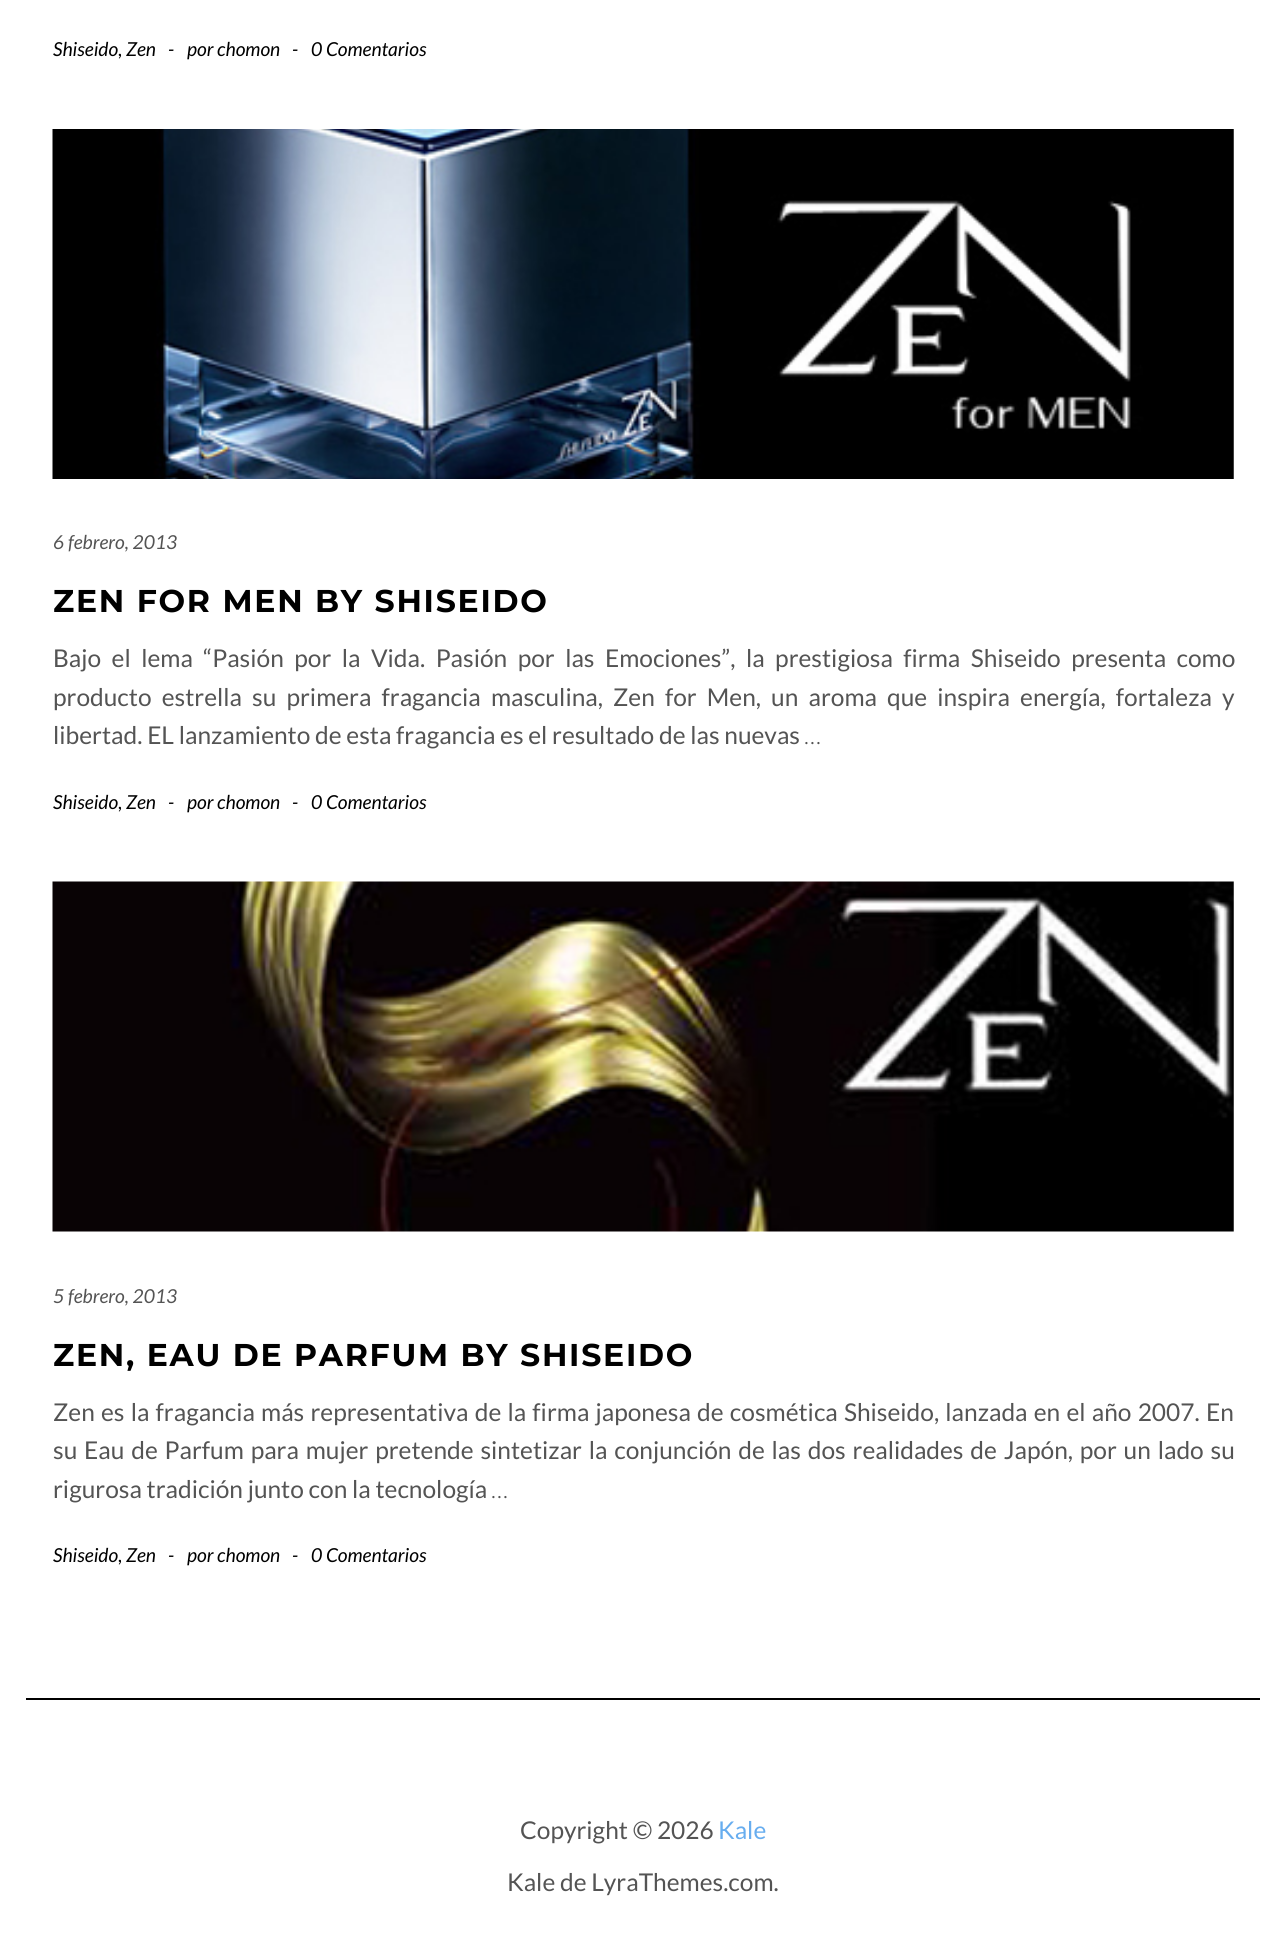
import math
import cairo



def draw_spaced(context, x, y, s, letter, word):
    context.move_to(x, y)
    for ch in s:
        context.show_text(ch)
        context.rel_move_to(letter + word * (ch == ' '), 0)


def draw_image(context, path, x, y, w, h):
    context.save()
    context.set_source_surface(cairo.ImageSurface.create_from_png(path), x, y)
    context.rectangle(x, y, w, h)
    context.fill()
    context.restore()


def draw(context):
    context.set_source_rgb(1, 1, 1)
    context.paint()
    draw_image(context, "images/1.png", 52, 129, 1182, 350)
    draw_image(context, "images/2.png", 52, 881, 1182, 351)
    context.set_source_rgb(0, 0, 0)
    context.rectangle(26, 1698, 1234, 2)
    context.fill()
    context.select_font_face("Lato", cairo.FontSlant.ITALIC)
    context.set_font_size(19.25)
    context.move_to(53, 56)
    context.show_text("Shiseido, Zen")
    context.move_to(168, 56)
    context.show_text("-")
    context.move_to(187, 56)
    context.show_text("por chomon")
    context.move_to(292, 56)
    context.show_text("-")
    context.move_to(311, 56)
    context.show_text("0 Comentarios")
    context.set_source_rgb(84 / 255, 84 / 255, 84 / 255)
    context.move_to(53, 549)
    context.show_text("6 febrero, 2013")
    context.select_font_face("Montserrat", cairo.FontSlant.NORMAL, cairo.FontWeight.BOLD)
    context.set_font_size(31.5)
    context.set_source_rgb(0, 0, 0)
    draw_spaced(context, 53, 612, "ZEN FOR MEN BY SHISEIDO", 1.75, 0)
    context.select_font_face("Lato")
    context.set_font_size(24.5)
    context.set_source_rgb(84 / 255, 84 / 255, 84 / 255)
    draw_spaced(context, 53, 667, "Bajo el lema “Pasión por la Vida. Pasión por las Emociones”, la prestigiosa firma Shiseido presenta como", 0, 5.75)
    draw_spaced(context, 53, 706, "producto estrella su primera fragancia masculina, Zen for Men, un aroma que inspira energía, fortaleza y", 0, 5.4)
    context.move_to(53, 744)
    context.show_text("libertad. EL lanzamiento de esta fragancia es el resultado de las nuevas")
    context.select_font_face("Lato Light")
    context.move_to(804, 744)
    context.show_text("…")
    context.select_font_face("Lato", cairo.FontSlant.ITALIC)
    context.set_font_size(19.25)
    context.set_source_rgb(0, 0, 0)
    context.move_to(53, 809)
    context.show_text("Shiseido, Zen")
    context.move_to(168, 809)
    context.show_text("-")
    context.move_to(187, 809)
    context.show_text("por chomon")
    context.move_to(292, 809)
    context.show_text("-")
    context.move_to(311, 809)
    context.show_text("0 Comentarios")
    context.set_source_rgb(84 / 255, 84 / 255, 84 / 255)
    context.move_to(53, 1303)
    context.show_text("5 febrero, 2013")
    context.select_font_face("Montserrat", cairo.FontSlant.NORMAL, cairo.FontWeight.BOLD)
    context.set_font_size(31.5)
    context.set_source_rgb(0, 0, 0)
    draw_spaced(context, 53, 1366, "ZEN, EAU DE PARFUM BY SHISEIDO", 1.75, 0)
    context.select_font_face("Lato")
    context.set_font_size(24.5)
    context.set_source_rgb(84 / 255, 84 / 255, 84 / 255)
    draw_spaced(context, 53, 1421, "Zen es la fragancia más representativa de la firma japonesa de cosmética Shiseido, lanzada en el año 2007. En", 0, 1.5)
    draw_spaced(context, 53, 1459, "su Eau de Parfum para mujer pretende sintetizar la conjunción de las dos realidades de Japón, por un lado su", 0, 2.1)
    context.move_to(53, 1498)
    context.show_text("rigurosa tradición junto con la tecnología")
    context.select_font_face("Lato Light")
    context.move_to(491, 1498)
    context.show_text("…")
    context.select_font_face("Lato", cairo.FontSlant.ITALIC)
    context.set_font_size(19.25)
    context.set_source_rgb(0, 0, 0)
    context.move_to(53, 1562)
    context.show_text("Shiseido, Zen")
    context.move_to(168, 1562)
    context.show_text("-")
    context.move_to(187, 1562)
    context.show_text("por chomon")
    context.move_to(292, 1562)
    context.show_text("-")
    context.move_to(311, 1562)
    context.show_text("0 Comentarios")
    context.select_font_face("Lato")
    context.set_font_size(24.5)
    context.set_source_rgb(84 / 255, 84 / 255, 84 / 255)
    context.move_to(520, 1839)
    context.show_text("Copyright © 2026")
    context.set_source_rgb(103 / 255, 173 / 255, 239 / 255)
    context.move_to(718, 1839)
    context.show_text("Kale")
    context.set_source_rgb(84 / 255, 84 / 255, 84 / 255)
    context.move_to(507, 1891)
    context.show_text("Kale de LyraThemes.com.")


surface = cairo.ImageSurface(cairo.Format.RGB24, 1286, 1940)
context = cairo.Context(surface)
options = cairo.FontOptions()
options.set_hint_metrics(cairo.HintMetrics.OFF)
options.set_hint_style(cairo.HintStyle.NONE)
context.set_font_options(options)
context.set_miter_limit(4)
draw(context)
surface.write_to_png("out.png")
